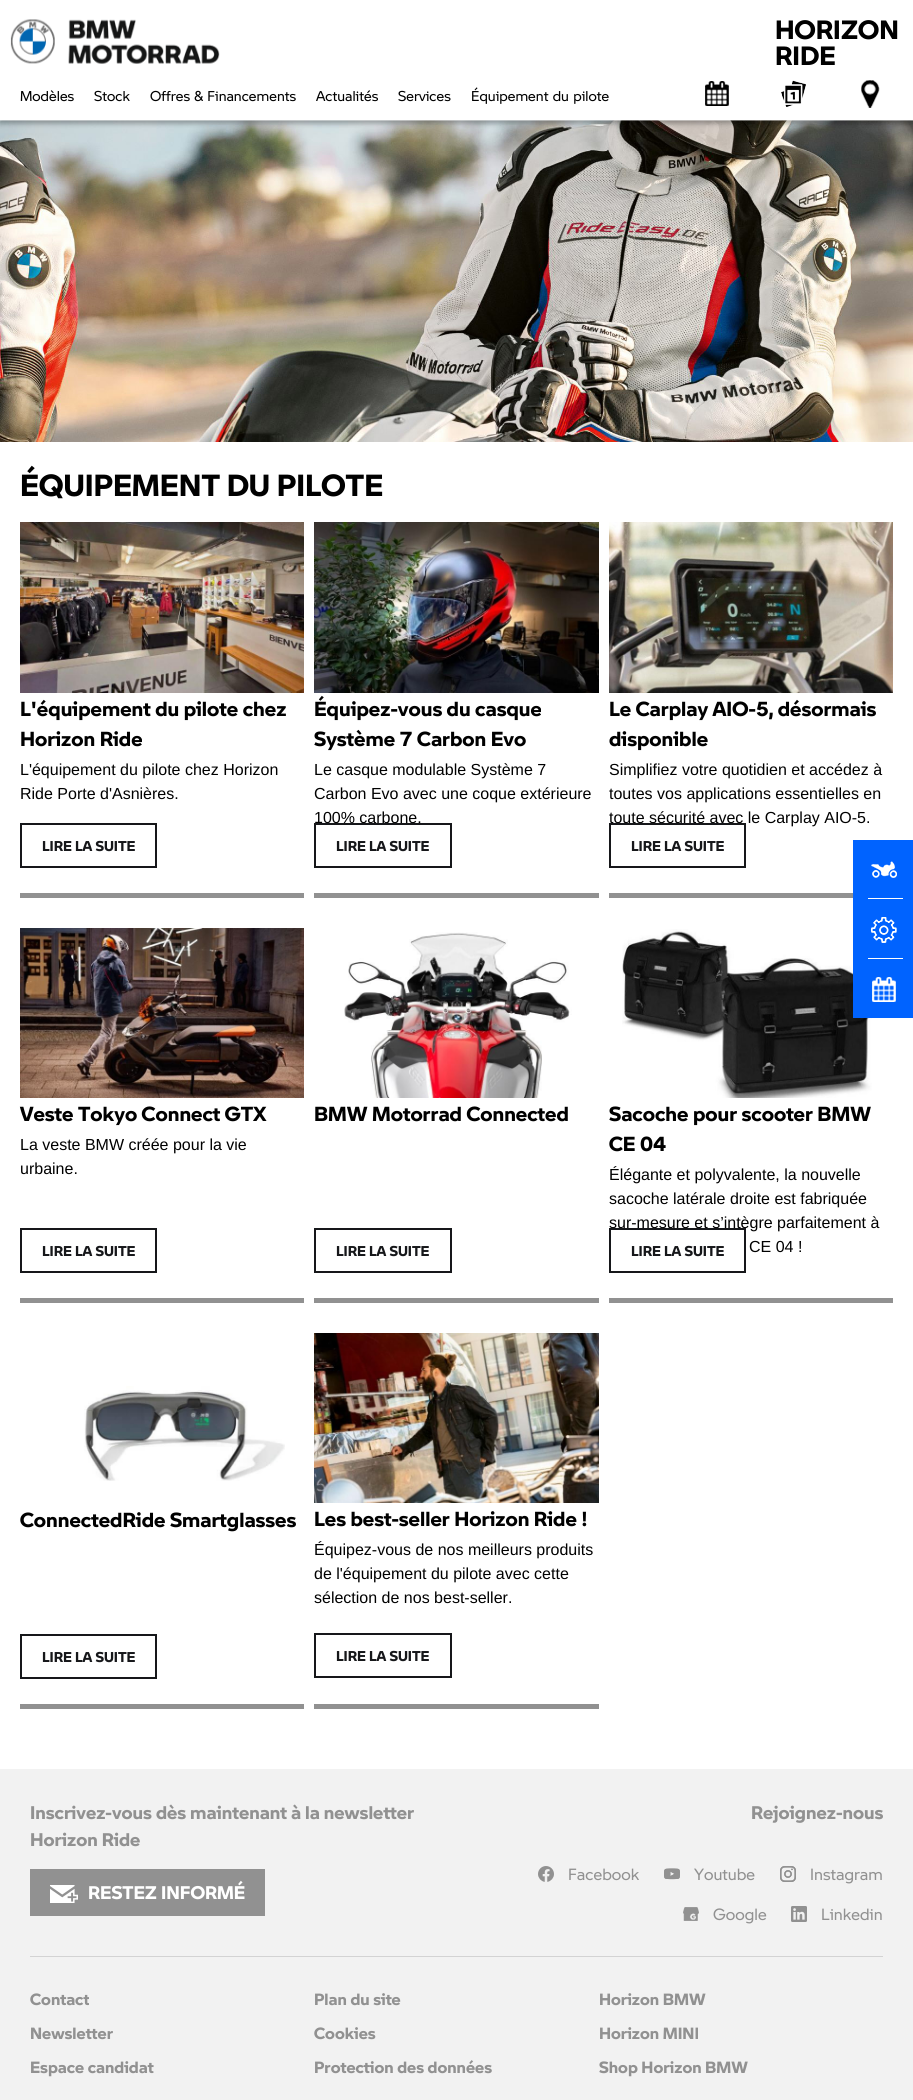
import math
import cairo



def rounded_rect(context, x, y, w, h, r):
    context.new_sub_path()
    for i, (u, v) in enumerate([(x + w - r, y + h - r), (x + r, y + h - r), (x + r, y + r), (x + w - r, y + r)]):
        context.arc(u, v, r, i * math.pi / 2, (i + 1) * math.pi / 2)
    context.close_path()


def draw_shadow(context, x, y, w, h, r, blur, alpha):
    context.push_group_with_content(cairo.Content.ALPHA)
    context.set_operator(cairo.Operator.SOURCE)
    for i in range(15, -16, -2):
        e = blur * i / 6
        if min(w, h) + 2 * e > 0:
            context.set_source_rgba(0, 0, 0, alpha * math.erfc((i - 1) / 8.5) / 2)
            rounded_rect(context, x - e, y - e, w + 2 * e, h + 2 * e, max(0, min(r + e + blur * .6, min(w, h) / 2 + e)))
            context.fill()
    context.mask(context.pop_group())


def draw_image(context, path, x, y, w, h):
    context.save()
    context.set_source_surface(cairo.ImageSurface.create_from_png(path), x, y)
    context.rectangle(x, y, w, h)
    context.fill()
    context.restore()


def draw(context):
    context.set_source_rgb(1, 1, 1)
    context.paint()
    draw_image(context, "images/5.png", 0, 120, 913, 322)
    context.set_source_rgb(0, 0, 0)
    draw_shadow(context, 0, 3, 913, 120, 0, 3, 0.23)
    draw_shadow(context, 0, 3, 913, 120, 0, 3, 0.16)
    context.set_source_rgb(1, 1, 1)
    context.rectangle(0, 0, 913, 120)
    context.fill()
    draw_image(context, "images/1.png", 10, 19, 210, 45)
    draw_image(context, "images/2.png", 705, 81, 24, 25)
    draw_image(context, "images/3.png", 781, 80, 25, 27)
    draw_image(context, "images/4.png", 861, 80, 19, 28)
    context.set_source_rgba(1, 1, 1, 0.4)
    context.rectangle(0, 120, 913, 1)
    context.fill()
    context.set_source_rgb(145 / 255, 145 / 255, 145 / 255)
    context.rectangle(20, 893, 284, 5)
    context.fill()
    draw_image(context, "images/6.png", 20, 522, 284, 171)
    context.rectangle(21, 824, 135, 43)
    context.set_source_rgb(22 / 255, 23 / 255, 26 / 255)
    context.stroke()
    context.set_source_rgb(145 / 255, 145 / 255, 145 / 255)
    context.rectangle(314, 893, 285, 5)
    context.fill()
    draw_image(context, "images/7.png", 314, 522, 285, 171)
    context.rectangle(609, 893, 244, 5)
    context.fill()
    draw_image(context, "images/8.png", 609, 522, 284, 171)
    context.rectangle(20, 1298, 284, 5)
    context.fill()
    draw_image(context, "images/9.png", 20, 928, 284, 170)
    context.rectangle(21, 1229, 135, 43)
    context.set_source_rgb(22 / 255, 23 / 255, 26 / 255)
    context.stroke()
    context.set_source_rgb(145 / 255, 145 / 255, 145 / 255)
    context.rectangle(314, 1298, 285, 5)
    context.fill()
    draw_image(context, "images/10.png", 344, 932, 228, 166)
    context.rectangle(315, 1229, 136, 43)
    context.set_source_rgb(22 / 255, 23 / 255, 26 / 255)
    context.stroke()
    context.set_source_rgb(145 / 255, 145 / 255, 145 / 255)
    context.rectangle(609, 1298, 284, 5)
    context.fill()
    draw_image(context, "images/11.png", 622, 929, 250, 169)
    context.rectangle(20, 1704, 284, 5)
    context.fill()
    draw_image(context, "images/12.png", 84, 1386, 201, 95)
    context.rectangle(21, 1635, 135, 43)
    context.set_source_rgb(22 / 255, 23 / 255, 26 / 255)
    context.stroke()
    context.set_source_rgb(145 / 255, 145 / 255, 145 / 255)
    context.rectangle(314, 1704, 285, 5)
    context.fill()
    draw_image(context, "images/13.png", 314, 1333, 285, 170)
    context.rectangle(315, 1634, 136, 43)
    context.set_source_rgb(22 / 255, 23 / 255, 26 / 255)
    context.stroke()
    context.set_source_rgb(0, 99 / 255, 1)
    context.rectangle(853, 840, 60, 178)
    context.fill()
    draw_image(context, "images/14.png", 871, 861, 26, 17)
    context.set_source_rgb(1, 1, 1)
    context.rectangle(868, 898, 35, 1)
    context.fill()
    draw_image(context, "images/15.png", 871, 917, 26, 26)
    context.rectangle(868, 958, 35, 1)
    context.fill()
    draw_image(context, "images/16.png", 872, 977, 24, 25)
    context.set_source_rgb(242 / 255, 242 / 255, 242 / 255)
    context.rectangle(0, 1769, 913, 331)
    context.fill()
    context.set_source_rgb(211 / 255, 211 / 255, 211 / 255)
    context.rectangle(30, 1956, 853, 1)
    context.fill()
    context.set_source_rgb(145 / 255, 145 / 255, 145 / 255)
    context.rectangle(30, 1869, 235, 47)
    context.fill()
    draw_image(context, "images/17.png", 50, 1885, 28, 18)
    draw_image(context, "images/18.png", 538, 1866, 16, 16)
    draw_image(context, "images/19.png", 664, 1868, 16, 12)
    draw_image(context, "images/20.png", 780, 1866, 16, 16)
    draw_image(context, "images/21.png", 683, 1907, 16, 14)
    draw_image(context, "images/22.png", 791, 1906, 16, 16)
    context.select_font_face("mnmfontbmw", cairo.FontSlant.NORMAL, cairo.FontWeight.BOLD)
    context.set_font_size(26)
    context.set_source_rgb(0, 0, 0)
    context.move_to(775, 39)
    context.show_text("HORIZON")
    context.move_to(775, 65)
    context.show_text("RIDE")
    context.select_font_face("mnmfontbmw")
    context.set_font_size(14)
    context.move_to(20, 101)
    context.show_text("Modèles")
    context.move_to(94, 101)
    context.show_text("Stock")
    context.move_to(150, 101)
    context.show_text("Offres & Financements")
    context.move_to(316, 101)
    context.show_text("Actualités")
    context.move_to(398, 101)
    context.show_text("Services")
    context.move_to(471, 101)
    context.show_text("Équipement du pilote")
    context.select_font_face("mnmfontbmw", cairo.FontSlant.NORMAL, cairo.FontWeight.BOLD)
    context.set_font_size(30)
    context.move_to(20, 496)
    context.show_text("ÉQUIPEMENT DU PILOTE")
    context.set_font_size(20)
    context.move_to(20, 716)
    context.show_text("L'équipement du pilote chez")
    context.move_to(20, 746)
    context.show_text("Horizon Ride")
    context.select_font_face("Liberation Sans")
    context.set_font_size(16)
    context.move_to(20, 775)
    context.show_text("L'équipement du pilote chez Horizon")
    context.move_to(20, 799)
    context.show_text("Ride Porte d'Asnières.")
    context.select_font_face("mnmfontbmw", cairo.FontSlant.NORMAL, cairo.FontWeight.BOLD)
    context.set_font_size(14)
    context.set_source_rgb(22 / 255, 23 / 255, 26 / 255)
    context.move_to(42, 851)
    context.show_text("LIRE LA SUITE")
    context.set_font_size(20)
    context.set_source_rgb(0, 0, 0)
    context.move_to(314, 716)
    context.show_text("Équipez-vous du casque")
    context.move_to(314, 746)
    context.show_text("Système 7 Carbon Evo")
    context.select_font_face("Liberation Sans")
    context.set_font_size(16)
    context.move_to(314, 775)
    context.show_text("Le casque modulable Système 7")
    context.move_to(314, 799)
    context.show_text("Carbon Evo avec une coque extérieure")
    context.move_to(314, 823)
    context.show_text("100% carbone.")
    context.rectangle(315, 824, 136, 43)
    context.set_source_rgb(22 / 255, 23 / 255, 26 / 255)
    context.stroke()
    context.select_font_face("mnmfontbmw", cairo.FontSlant.NORMAL, cairo.FontWeight.BOLD)
    context.set_font_size(14)
    context.move_to(336, 851)
    context.show_text("LIRE LA SUITE")
    context.set_font_size(20)
    context.set_source_rgb(0, 0, 0)
    context.move_to(609, 716)
    context.show_text("Le Carplay AIO-5, désormais")
    context.move_to(609, 746)
    context.show_text("disponible")
    context.select_font_face("Liberation Sans")
    context.set_font_size(16)
    context.move_to(609, 775)
    context.show_text("Simplifiez votre quotidien et accédez à")
    context.move_to(609, 799)
    context.show_text("toutes vos applications essentielles en")
    context.move_to(609, 823)
    context.show_text("toute sécurité avec le Carplay AIO-5.")
    context.rectangle(610, 824, 135, 43)
    context.set_source_rgb(22 / 255, 23 / 255, 26 / 255)
    context.stroke()
    context.select_font_face("mnmfontbmw", cairo.FontSlant.NORMAL, cairo.FontWeight.BOLD)
    context.set_font_size(14)
    context.move_to(631, 851)
    context.show_text("LIRE LA SUITE")
    context.set_font_size(20)
    context.set_source_rgb(0, 0, 0)
    context.move_to(20, 1121)
    context.show_text("Veste Tokyo Connect GTX")
    context.select_font_face("Liberation Sans")
    context.set_font_size(16)
    context.move_to(20, 1150)
    context.show_text("La veste BMW créée pour la vie")
    context.move_to(20, 1174)
    context.show_text("urbaine.")
    context.select_font_face("mnmfontbmw", cairo.FontSlant.NORMAL, cairo.FontWeight.BOLD)
    context.set_font_size(14)
    context.set_source_rgb(22 / 255, 23 / 255, 26 / 255)
    context.move_to(42, 1256)
    context.show_text("LIRE LA SUITE")
    context.set_font_size(20)
    context.set_source_rgb(0, 0, 0)
    context.move_to(314, 1121)
    context.show_text("BMW Motorrad Connected")
    context.set_font_size(14)
    context.set_source_rgb(22 / 255, 23 / 255, 26 / 255)
    context.move_to(336, 1256)
    context.show_text("LIRE LA SUITE")
    context.set_font_size(20)
    context.set_source_rgb(0, 0, 0)
    context.move_to(609, 1121)
    context.show_text("Sacoche pour scooter BMW")
    context.move_to(609, 1151)
    context.show_text("CE 04")
    context.select_font_face("Liberation Sans")
    context.set_font_size(16)
    context.move_to(609, 1180)
    context.show_text("Élégante et polyvalente, la nouvelle")
    context.move_to(609, 1204)
    context.show_text("sacoche latérale droite est fabriquée")
    context.move_to(609, 1228)
    context.show_text("sur-mesure et s’intègre parfaitement à")
    context.move_to(749, 1252)
    context.show_text("CE 04 !")
    context.rectangle(610, 1229, 135, 43)
    context.set_source_rgb(22 / 255, 23 / 255, 26 / 255)
    context.stroke()
    context.select_font_face("mnmfontbmw", cairo.FontSlant.NORMAL, cairo.FontWeight.BOLD)
    context.set_font_size(14)
    context.move_to(631, 1256)
    context.show_text("LIRE LA SUITE")
    context.set_font_size(20)
    context.set_source_rgb(0, 0, 0)
    context.move_to(20, 1527)
    context.show_text("ConnectedRide Smartglasses")
    context.set_font_size(14)
    context.set_source_rgb(22 / 255, 23 / 255, 26 / 255)
    context.move_to(42, 1662)
    context.show_text("LIRE LA SUITE")
    context.set_font_size(20)
    context.set_source_rgb(0, 0, 0)
    context.move_to(314, 1526)
    context.show_text("Les best-seller Horizon Ride !")
    context.select_font_face("Liberation Sans")
    context.set_font_size(16)
    context.move_to(314, 1555)
    context.show_text("Équipez-vous de nos meilleurs produits")
    context.move_to(314, 1579)
    context.show_text("de l'équipement du pilote avec cette")
    context.move_to(314, 1603)
    context.show_text("sélection de nos best-seller.")
    context.select_font_face("mnmfontbmw", cairo.FontSlant.NORMAL, cairo.FontWeight.BOLD)
    context.set_font_size(14)
    context.set_source_rgb(22 / 255, 23 / 255, 26 / 255)
    context.move_to(336, 1661)
    context.show_text("LIRE LA SUITE")
    context.set_font_size(18)
    context.set_source_rgb(145 / 255, 145 / 255, 145 / 255)
    context.move_to(30, 1819)
    context.show_text("Inscrivez-vous dès maintenant à la newsletter")
    context.move_to(30, 1846)
    context.show_text("Horizon Ride")
    context.set_source_rgb(1, 1, 1)
    context.move_to(88, 1899)
    context.show_text("RESTEZ INFORMÉ")
    context.set_source_rgb(145 / 255, 145 / 255, 145 / 255)
    context.move_to(751, 1819)
    context.show_text("Rejoignez-nous")
    context.select_font_face("mnmfontbmw")
    context.set_font_size(16)
    context.move_to(568, 1880)
    context.show_text("Facebook")
    context.move_to(694, 1880)
    context.show_text("Youtube")
    context.move_to(810, 1880)
    context.show_text("Instagram")
    context.move_to(713, 1920)
    context.show_text("Google")
    context.move_to(821, 1920)
    context.show_text("Linkedin")
    context.select_font_face("mnmfontbmw", cairo.FontSlant.NORMAL, cairo.FontWeight.BOLD)
    context.move_to(30, 2005)
    context.show_text("Contact")
    context.move_to(30, 2039)
    context.show_text("Newsletter")
    context.move_to(30, 2073)
    context.show_text("Espace candidat")
    context.move_to(314, 2005)
    context.show_text("Plan du site")
    context.move_to(314, 2039)
    context.show_text("Cookies")
    context.move_to(314, 2073)
    context.show_text("Protection des données")
    context.move_to(599, 2005)
    context.show_text("Horizon BMW")
    context.move_to(599, 2039)
    context.show_text("Horizon MINI")
    context.move_to(599, 2073)
    context.show_text("Shop Horizon BMW")


surface = cairo.ImageSurface(cairo.Format.RGB24, 913, 2100)
context = cairo.Context(surface)
options = cairo.FontOptions()
options.set_hint_metrics(cairo.HintMetrics.OFF)
options.set_hint_style(cairo.HintStyle.NONE)
context.set_font_options(options)
context.set_miter_limit(4)
draw(context)
surface.write_to_png("out.png")
